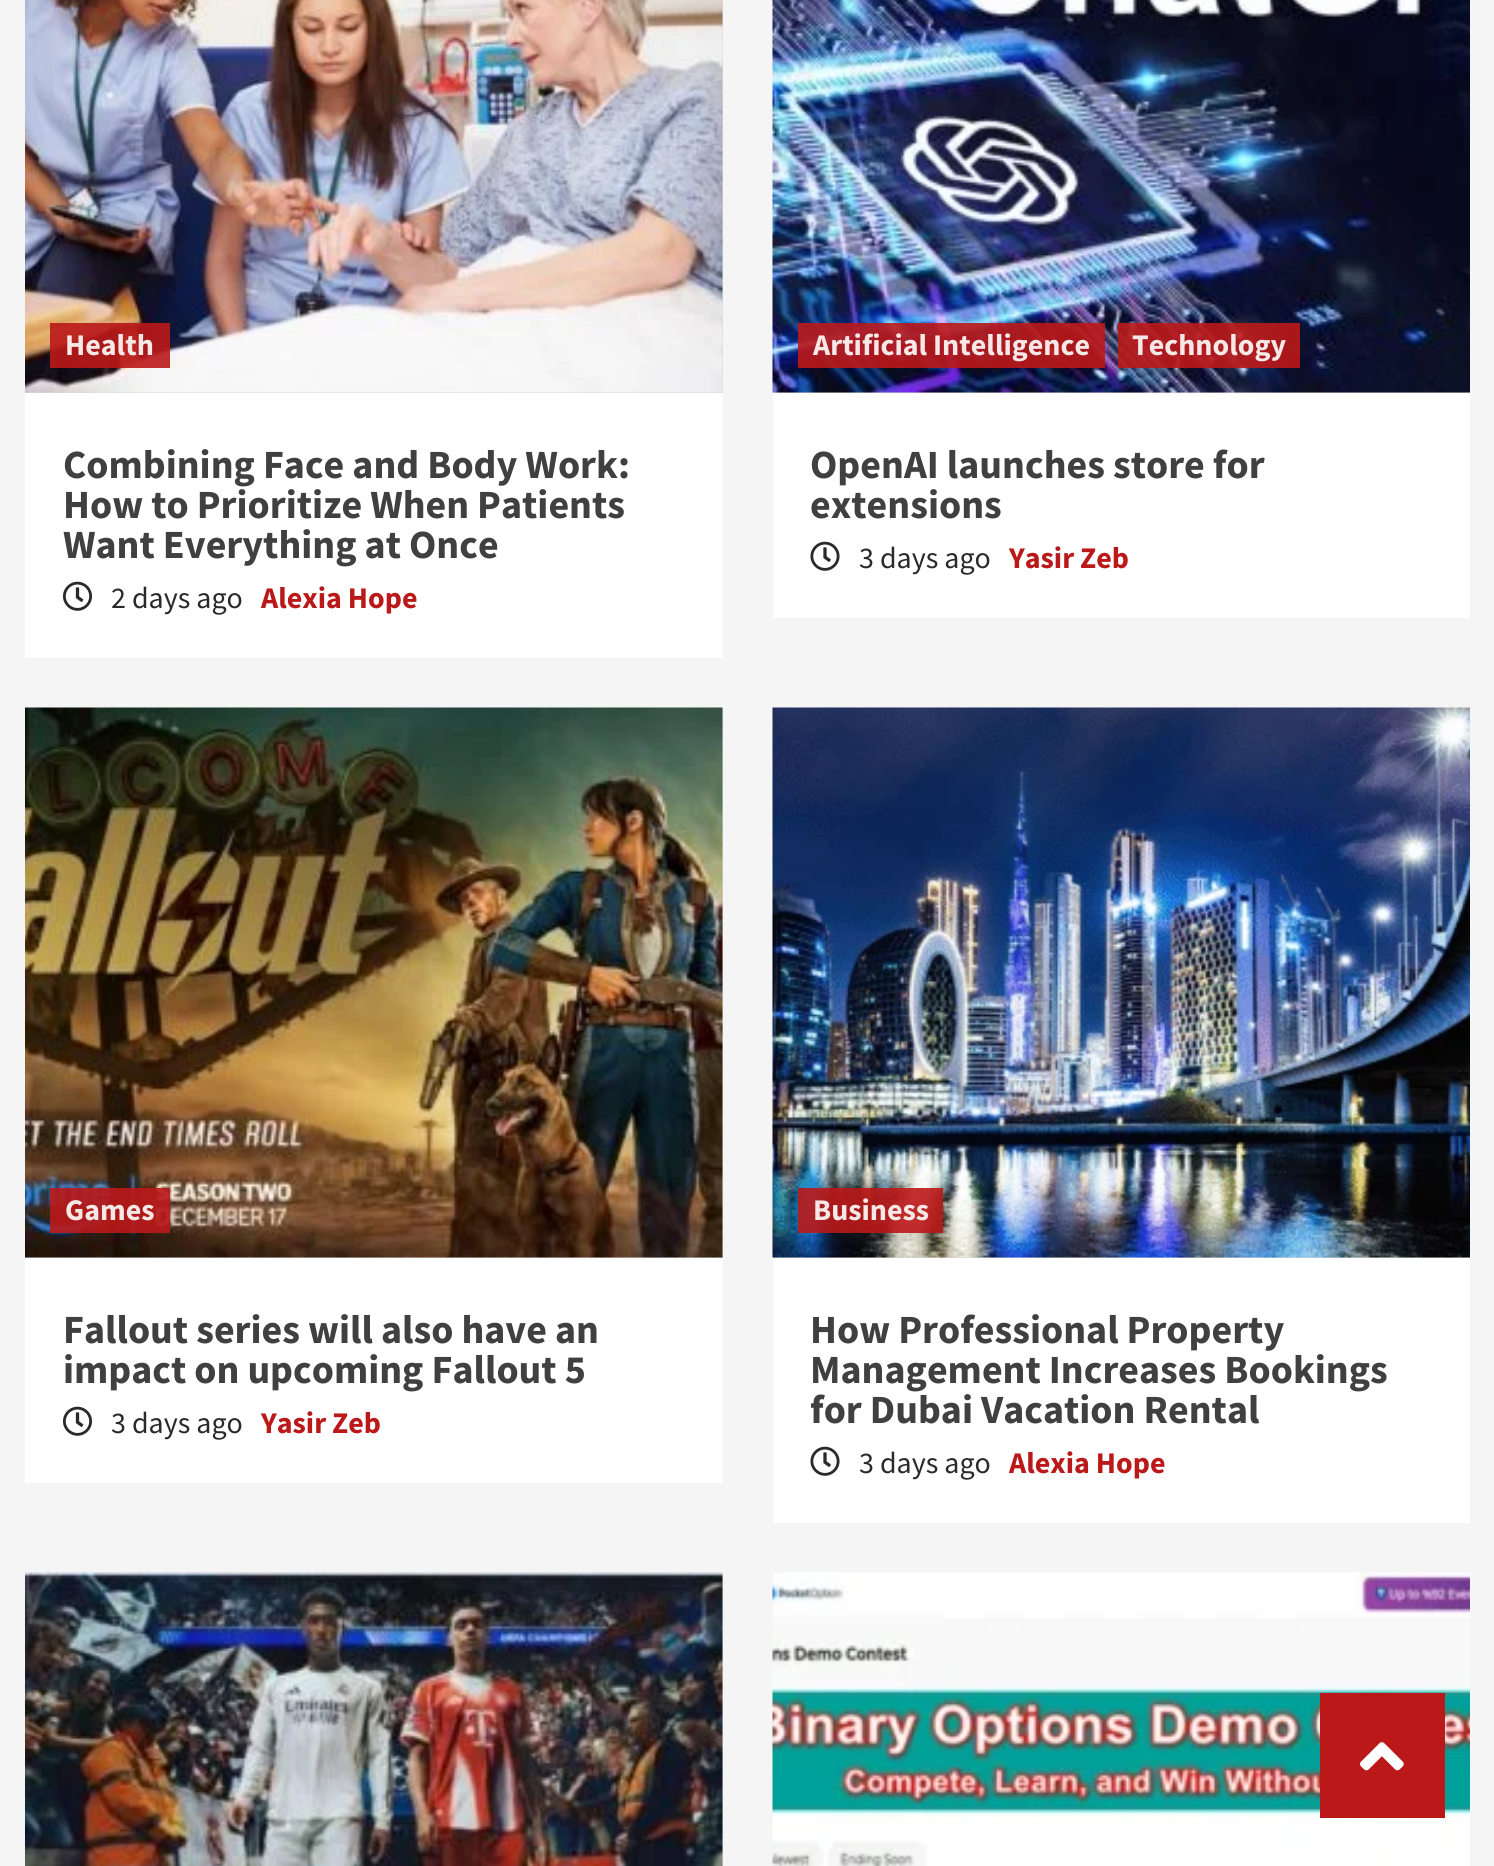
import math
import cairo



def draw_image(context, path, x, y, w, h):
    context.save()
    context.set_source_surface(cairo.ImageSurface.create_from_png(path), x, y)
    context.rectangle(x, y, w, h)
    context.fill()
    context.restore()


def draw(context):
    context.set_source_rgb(245 / 255, 245 / 255, 245 / 255)
    context.paint()
    context.set_source_rgb(1, 1, 1)
    context.rectangle(25, 393, 698, 265)
    context.fill()
    context.set_source_rgb(216 / 255, 216 / 255, 216 / 255)
    context.rectangle(25, 0, 698, 393)
    context.fill()
    draw_image(context, "images/1.png", 25, 0, 698, 393)
    context.set_source_rgba(187 / 255, 25 / 255, 25 / 255, 0.9)
    context.rectangle(50, 323, 120, 45)
    context.fill()
    draw_image(context, "images/2.png", 63, 581, 29, 30)
    context.set_source_rgb(1, 1, 1)
    context.rectangle(773, 393, 697, 225)
    context.fill()
    context.set_source_rgb(216 / 255, 216 / 255, 216 / 255)
    context.rectangle(773, 392, 697, 1)
    context.fill()
    draw_image(context, "images/3.png", 772, 0, 698, 393)
    context.set_source_rgba(187 / 255, 25 / 255, 25 / 255, 0.9)
    context.rectangle(798, 323, 307, 45)
    context.fill()
    context.rectangle(1118, 323, 182, 45)
    context.fill()
    draw_image(context, "images/4.png", 810, 541, 30, 30)
    context.set_source_rgb(1, 1, 1)
    context.rectangle(25, 1258, 698, 225)
    context.fill()
    context.set_source_rgb(216 / 255, 216 / 255, 216 / 255)
    context.rectangle(25, 708, 698, 550)
    context.fill()
    draw_image(context, "images/5.png", 25, 707, 698, 551)
    context.set_source_rgba(187 / 255, 25 / 255, 25 / 255, 0.9)
    context.rectangle(50, 1188, 120, 45)
    context.fill()
    draw_image(context, "images/2.png", 63, 1406, 29, 30)
    context.set_source_rgb(1, 1, 1)
    context.rectangle(773, 1258, 697, 265)
    context.fill()
    context.set_source_rgb(216 / 255, 216 / 255, 216 / 255)
    context.rectangle(773, 1257, 697, 1)
    context.fill()
    draw_image(context, "images/6.png", 772, 707, 698, 551)
    context.set_source_rgba(187 / 255, 25 / 255, 25 / 255, 0.9)
    context.rectangle(798, 1188, 145, 45)
    context.fill()
    draw_image(context, "images/4.png", 810, 1446, 30, 30)
    context.set_source_rgb(216 / 255, 216 / 255, 216 / 255)
    context.rectangle(722, 1573, 1, 293)
    context.fill()
    draw_image(context, "images/7.png", 25, 1572, 698, 294)
    draw_image(context, "images/8.png", 772, 1572, 698, 294)
    context.set_source_rgb(187 / 255, 25 / 255, 25 / 255)
    context.rectangle(1320, 1693, 125, 125)
    context.fill()
    draw_image(context, "images/9.png", 1360, 1742, 44, 29)
    context.select_font_face("Source Sans Pro", cairo.FontSlant.NORMAL, cairo.FontWeight.BOLD)
    context.set_font_size(30)
    context.set_source_rgb(247 / 255, 232 / 255, 232 / 255)
    context.move_to(65, 355)
    context.show_text("Health")
    context.set_font_size(40)
    context.set_source_rgb(64 / 255, 64 / 255, 64 / 255)
    context.move_to(63, 478)
    context.show_text("Combining Face and Body Work:")
    context.move_to(63, 518)
    context.show_text("How to Prioritize When Patients")
    context.move_to(63, 558)
    context.show_text("Want Everything at Once")
    context.select_font_face("Source Sans Pro")
    context.set_font_size(30)
    context.set_source_rgb(42 / 255, 42 / 255, 42 / 255)
    context.move_to(111, 608)
    context.show_text("2 days ago")
    context.select_font_face("Source Sans Pro", cairo.FontSlant.NORMAL, cairo.FontWeight.BOLD)
    context.set_source_rgb(187 / 255, 25 / 255, 25 / 255)
    context.move_to(261, 608)
    context.show_text("Alexia Hope")
    context.set_source_rgb(247 / 255, 232 / 255, 232 / 255)
    context.move_to(813, 355)
    context.show_text("Artificial Intelligence")
    context.move_to(1132, 355)
    context.show_text("Technology")
    context.set_font_size(40)
    context.set_source_rgb(64 / 255, 64 / 255, 64 / 255)
    context.move_to(810, 478)
    context.show_text("OpenAI launches store for")
    context.move_to(810, 518)
    context.show_text("extensions")
    context.select_font_face("Source Sans Pro")
    context.set_font_size(30)
    context.set_source_rgb(42 / 255, 42 / 255, 42 / 255)
    context.move_to(859, 568)
    context.show_text("3 days ago")
    context.select_font_face("Source Sans Pro", cairo.FontSlant.NORMAL, cairo.FontWeight.BOLD)
    context.set_source_rgb(187 / 255, 25 / 255, 25 / 255)
    context.move_to(1009, 568)
    context.show_text("Yasir Zeb")
    context.set_source_rgb(247 / 255, 232 / 255, 232 / 255)
    context.move_to(65, 1220)
    context.show_text("Games")
    context.set_font_size(40)
    context.set_source_rgb(64 / 255, 64 / 255, 64 / 255)
    context.move_to(63, 1343)
    context.show_text("Fallout series will also have an")
    context.move_to(63, 1383)
    context.show_text("impact on upcoming Fallout 5")
    context.select_font_face("Source Sans Pro")
    context.set_font_size(30)
    context.set_source_rgb(42 / 255, 42 / 255, 42 / 255)
    context.move_to(111, 1433)
    context.show_text("3 days ago")
    context.select_font_face("Source Sans Pro", cairo.FontSlant.NORMAL, cairo.FontWeight.BOLD)
    context.set_source_rgb(187 / 255, 25 / 255, 25 / 255)
    context.move_to(261, 1433)
    context.show_text("Yasir Zeb")
    context.set_source_rgb(247 / 255, 232 / 255, 232 / 255)
    context.move_to(813, 1220)
    context.show_text("Business")
    context.set_font_size(40)
    context.set_source_rgb(64 / 255, 64 / 255, 64 / 255)
    context.move_to(810, 1343)
    context.show_text("How Professional Property")
    context.move_to(810, 1383)
    context.show_text("Management Increases Bookings")
    context.move_to(810, 1423)
    context.show_text("for Dubai Vacation Rental")
    context.select_font_face("Source Sans Pro")
    context.set_font_size(30)
    context.set_source_rgb(42 / 255, 42 / 255, 42 / 255)
    context.move_to(859, 1473)
    context.show_text("3 days ago")
    context.select_font_face("Source Sans Pro", cairo.FontSlant.NORMAL, cairo.FontWeight.BOLD)
    context.set_source_rgb(187 / 255, 25 / 255, 25 / 255)
    context.move_to(1009, 1473)
    context.show_text("Alexia Hope")


surface = cairo.ImageSurface(cairo.Format.RGB24, 1494, 1866)
context = cairo.Context(surface)
options = cairo.FontOptions()
options.set_hint_metrics(cairo.HintMetrics.OFF)
options.set_hint_style(cairo.HintStyle.NONE)
context.set_font_options(options)
context.set_miter_limit(4)
draw(context)
surface.write_to_png("out.png")
